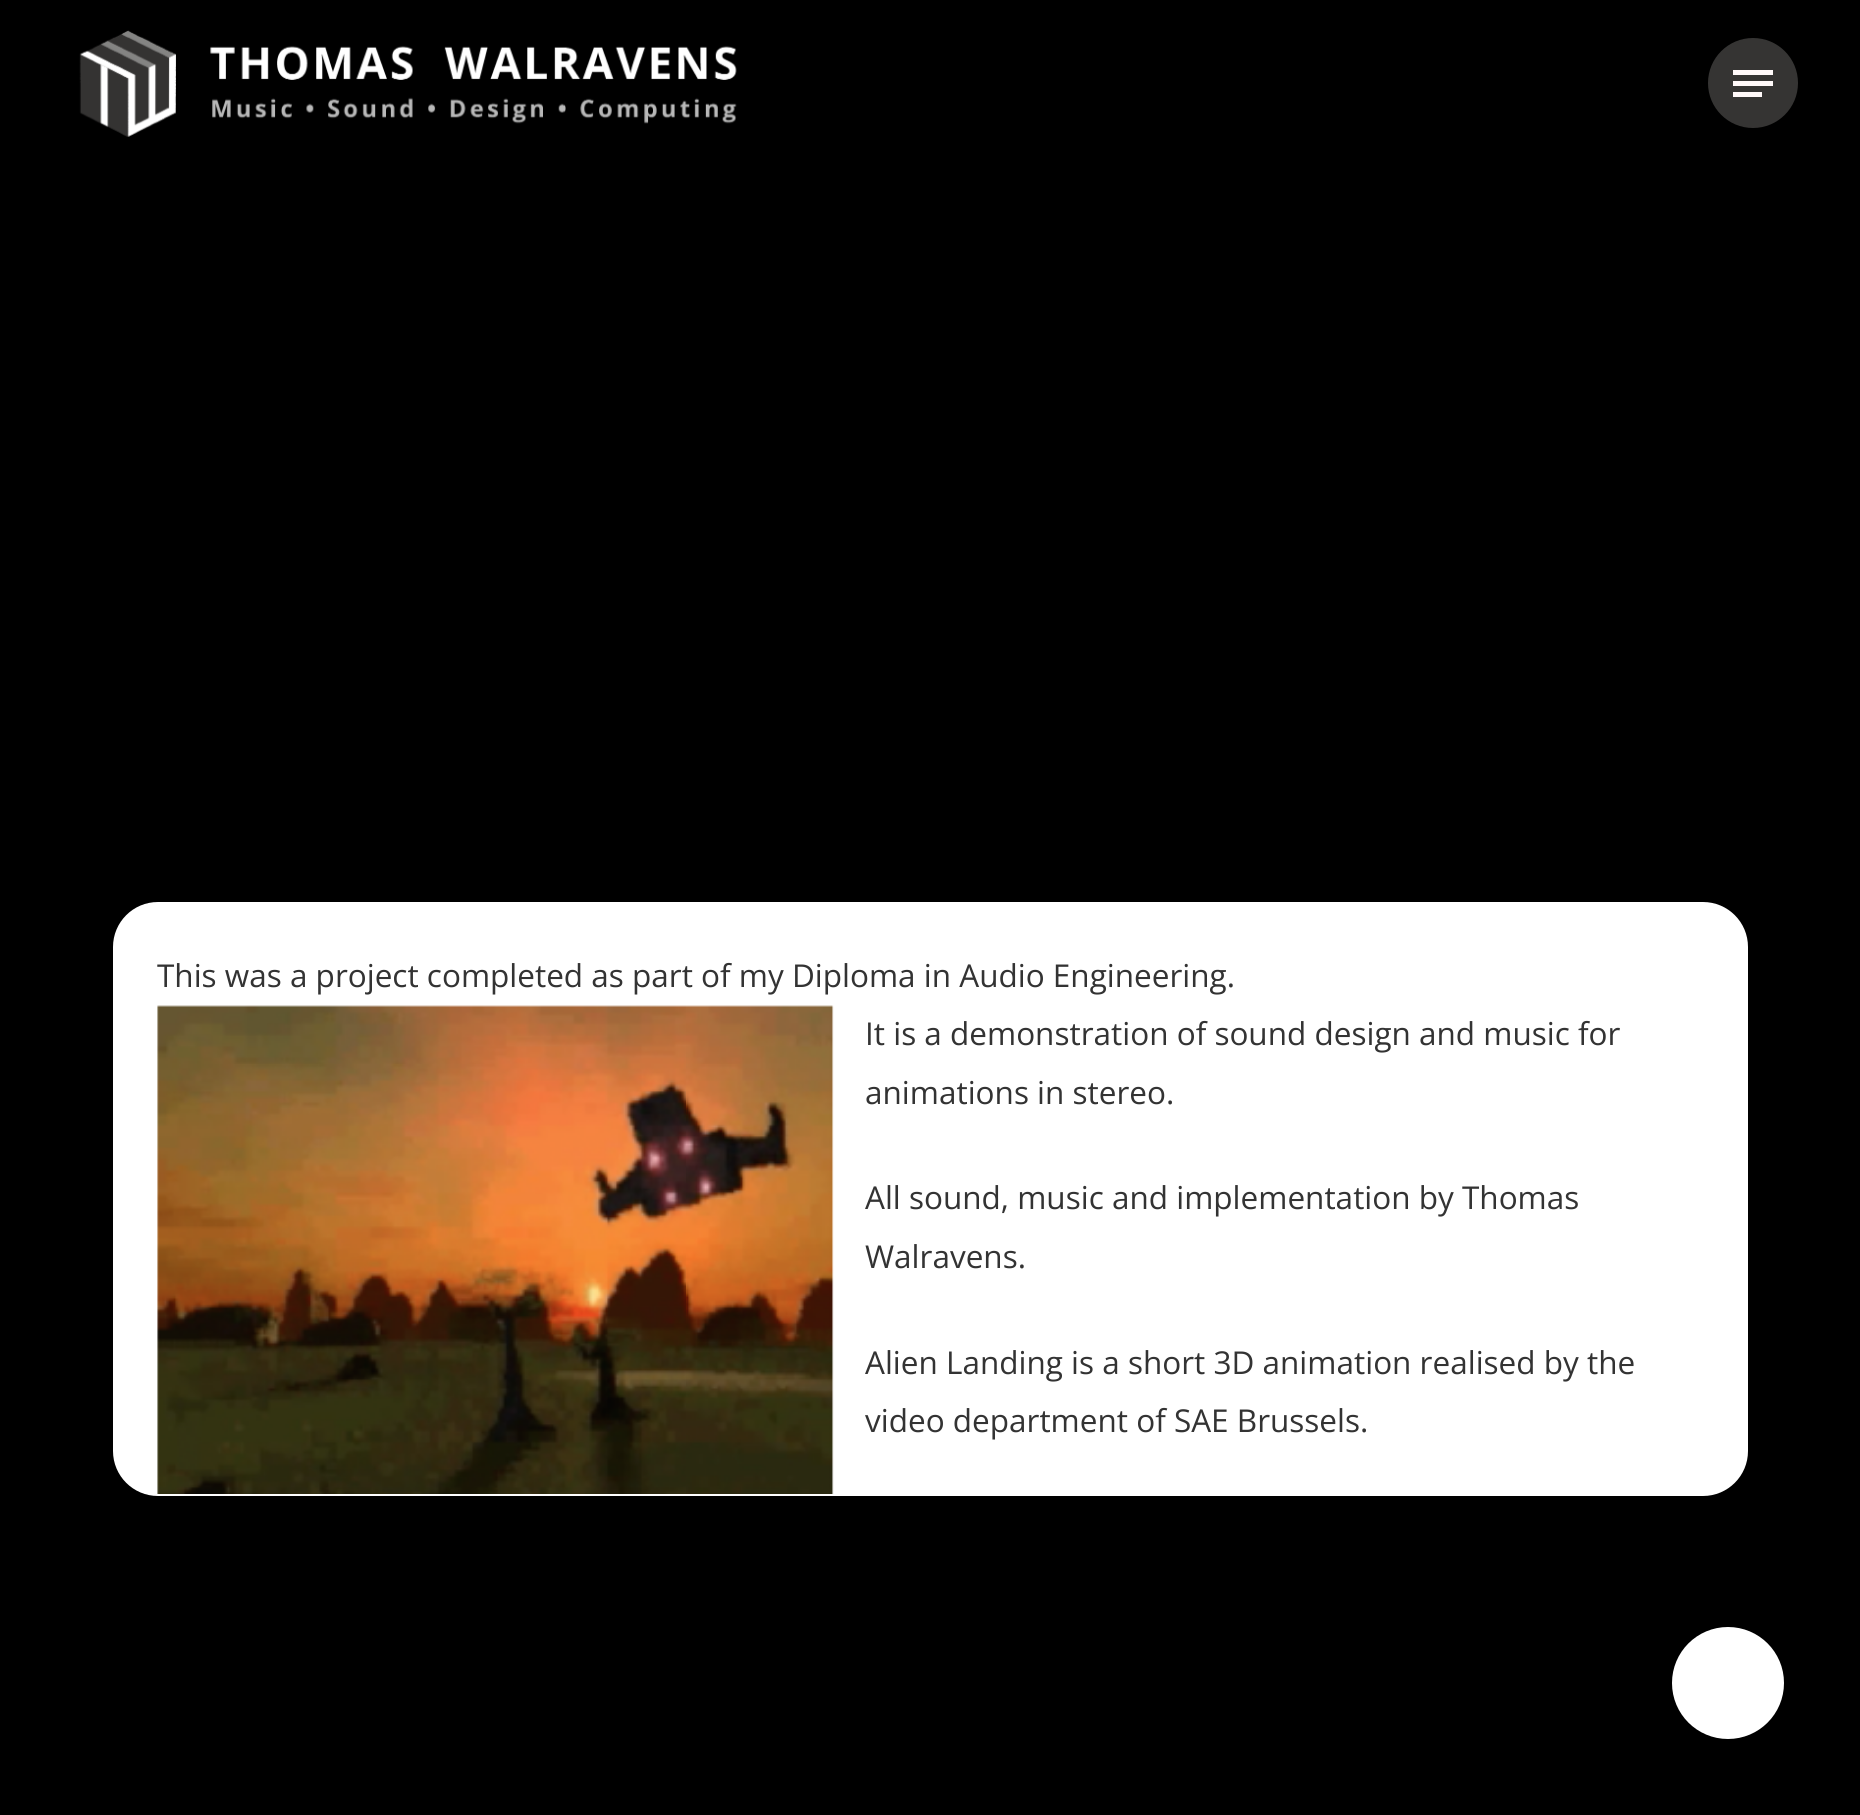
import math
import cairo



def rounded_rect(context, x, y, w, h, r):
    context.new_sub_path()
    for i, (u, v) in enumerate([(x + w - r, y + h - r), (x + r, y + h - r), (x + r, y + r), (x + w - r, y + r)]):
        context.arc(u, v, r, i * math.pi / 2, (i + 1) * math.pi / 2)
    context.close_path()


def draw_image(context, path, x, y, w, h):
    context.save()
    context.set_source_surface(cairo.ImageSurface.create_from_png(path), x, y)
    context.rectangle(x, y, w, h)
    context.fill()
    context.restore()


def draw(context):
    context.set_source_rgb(0, 0, 0)
    context.paint()
    draw_image(context, "images/1.png", 79, 30, 658, 107)
    context.set_source_rgb(53 / 255, 52 / 255, 51 / 255)
    context.arc(1753, 83, 45, 0, 2 * math.pi)
    context.fill()
    context.set_source_rgb(1, 249 / 255, 249 / 255)
    context.rectangle(1733, 70, 40, 5)
    context.fill()
    context.rectangle(1733, 92, 29, 5)
    context.fill()
    context.rectangle(1733, 81, 40, 5)
    context.fill()
    context.set_source_rgb(1, 1, 1)
    rounded_rect(context, 113, 902, 1635, 594, 45)
    context.fill()
    draw_image(context, "images/2.png", 157, 1005, 677, 489)
    context.arc(1728, 1683, 56, 0, 2 * math.pi)
    context.fill()
    context.select_font_face("Open Sans")
    context.set_font_size(31.5)
    context.set_source_rgb(51 / 255, 51 / 255, 51 / 255)
    context.move_to(157, 987)
    context.show_text("This was a project completed as part of my Diploma in Audio Engineering.")
    context.move_to(865, 1045)
    context.show_text("It is a demonstration of sound design and music for")
    context.move_to(865, 1104)
    context.show_text("animations in stereo.")
    context.move_to(865, 1209)
    context.show_text("All sound, music and implementation by Thomas")
    context.move_to(865, 1268)
    context.show_text("Walravens.")
    context.move_to(865, 1374)
    context.show_text("Alien Landing is a short 3D animation realised by the")
    context.move_to(865, 1432)
    context.show_text("video department of SAE Brussels.")


surface = cairo.ImageSurface(cairo.Format.RGB24, 1860, 1815)
context = cairo.Context(surface)
options = cairo.FontOptions()
options.set_hint_metrics(cairo.HintMetrics.OFF)
options.set_hint_style(cairo.HintStyle.NONE)
context.set_font_options(options)
context.set_miter_limit(4)
draw(context)
surface.write_to_png("out.png")
